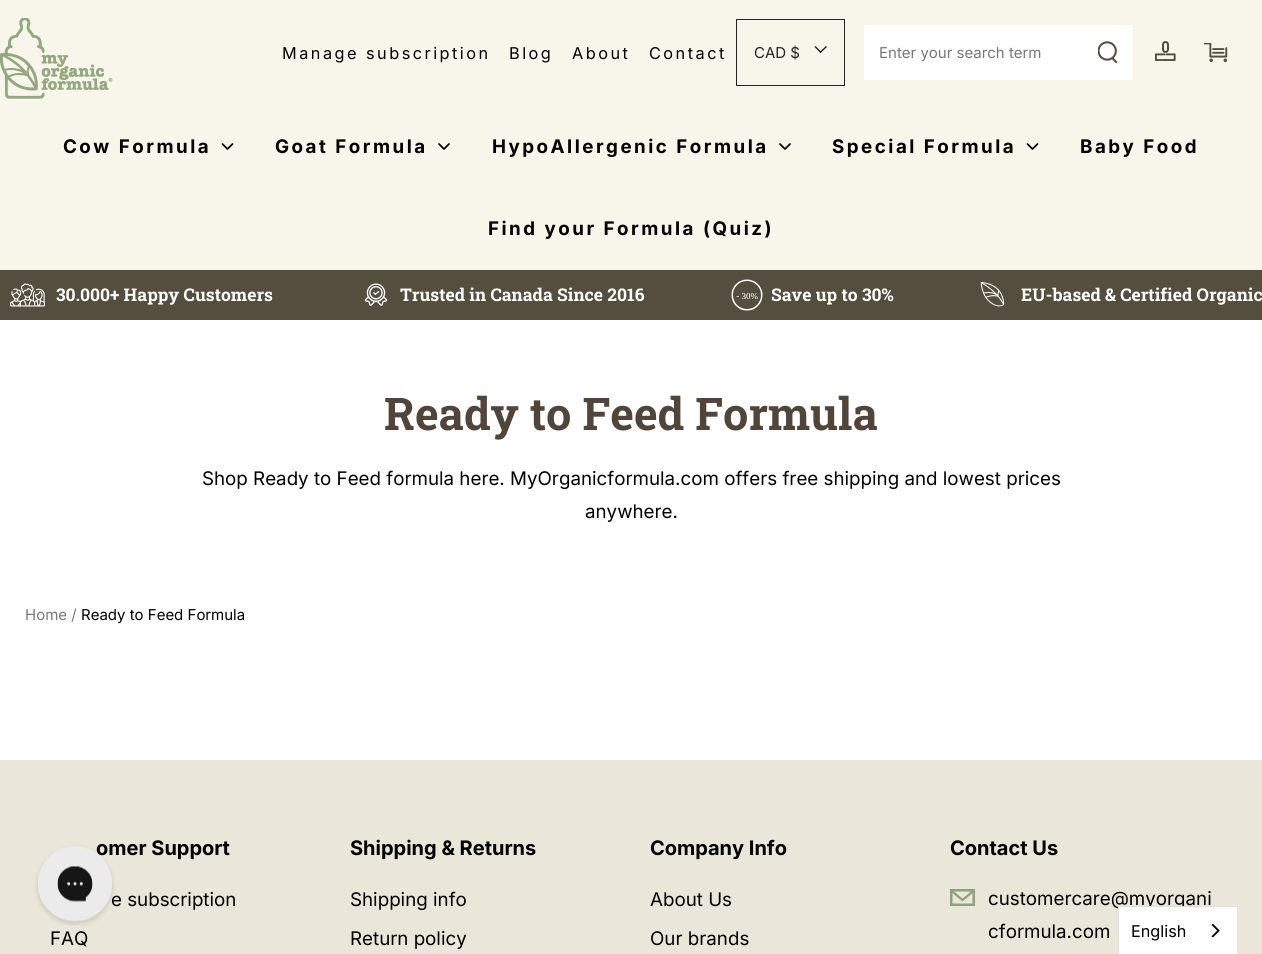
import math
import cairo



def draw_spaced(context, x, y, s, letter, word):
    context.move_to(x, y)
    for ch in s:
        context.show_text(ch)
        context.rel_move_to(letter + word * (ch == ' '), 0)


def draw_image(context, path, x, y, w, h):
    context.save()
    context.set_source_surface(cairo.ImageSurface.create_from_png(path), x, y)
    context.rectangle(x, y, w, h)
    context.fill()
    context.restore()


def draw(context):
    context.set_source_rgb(1, 1, 1)
    context.paint()
    context.set_source_rgb(248 / 255, 245 / 255, 235 / 255)
    context.rectangle(0, 0, 1262, 270)
    context.fill()
    draw_image(context, "images/1.png", 0, 18, 113, 81)
    context.rectangle(736.5, 19.5, 108, 66)
    context.set_source_rgb(36 / 255, 36 / 255, 36 / 255)
    context.set_line_width(1)
    context.stroke()
    context.new_path()
    context.move_to(826, 46)
    context.line_to(827, 47)
    context.line_to(820.5, 53)
    context.line_to(819.5, 52)
    context.close_path()
    context.fill()
    context.new_path()
    context.move_to(815.5, 46)
    context.line_to(821.5, 52)
    context.line_to(820.5, 53)
    context.line_to(814.5, 47)
    context.close_path()
    context.fill()
    context.set_source_rgb(1, 1, 1)
    context.rectangle(864, 25, 269, 55)
    context.fill()
    draw_image(context, "images/2.png", 1098, 41, 20, 23)
    draw_image(context, "images/3.png", 1155, 41, 21, 20)
    draw_image(context, "images/4.png", 1203, 43, 25, 20)
    context.set_source_rgb(248 / 255, 245 / 255, 235 / 255)
    context.arc(1238.5, 41.5, 12.5, 0, 2 * math.pi)
    context.fill()
    context.new_path()
    context.move_to(222.5, 144)
    context.line_to(227.5, 149)
    context.line_to(232.5, 144)
    context.set_source_rgb(0, 0, 0)
    context.set_line_width(1.7)
    context.set_line_cap(cairo.LineCap.ROUND)
    context.set_line_join(cairo.LineJoin.ROUND)
    context.stroke()
    context.new_path()
    context.move_to(439, 144)
    context.line_to(444, 149)
    context.line_to(449, 144)
    context.stroke()
    context.new_path()
    context.move_to(780, 144)
    context.line_to(785, 149)
    context.line_to(790, 144)
    context.stroke()
    context.new_path()
    context.move_to(1027.5, 144)
    context.line_to(1032.5, 149)
    context.line_to(1037.5, 144)
    context.stroke()
    context.set_source_rgb(83 / 255, 78 / 255, 61 / 255)
    context.rectangle(0, 270, 1262, 50)
    context.fill()
    draw_image(context, "images/5.png", 10, 283, 35, 24)
    draw_image(context, "images/6.png", 364, 283, 24, 23)
    draw_image(context, "images/7.png", 731, 279, 32, 32)
    draw_image(context, "images/8.png", 980, 282, 25, 25)
    context.set_source_rgb(234 / 255, 230 / 255, 217 / 255)
    context.rectangle(0, 760, 1262, 194)
    context.fill()
    context.rectangle(951.25, 890.25, 22.5, 14.5)
    context.set_source_rgb(141 / 255, 163 / 255, 122 / 255)
    context.set_line_width(2.5)
    context.set_line_cap(cairo.LineCap.BUTT)
    context.set_line_join(cairo.LineJoin.MITER)
    context.stroke()
    context.new_path()
    context.move_to(951, 890.5)
    context.line_to(962.5, 900)
    context.line_to(974, 890.5)
    context.set_line_width(2.3)
    context.stroke()
    context.select_font_face("Inter")
    context.set_font_size(16.25)
    context.set_source_rgb(0, 0, 0)
    draw_spaced(context, 282, 59, "Manage subscription", 2.5, 0)
    draw_spaced(context, 509, 59, "Blog", 2.5, 0)
    draw_spaced(context, 572, 59, "About", 2.5, 0)
    draw_spaced(context, 649, 59, "Contact", 2.5, 0)
    context.set_font_size(15)
    context.set_source_rgb(36 / 255, 36 / 255, 36 / 255)
    context.move_to(754, 58)
    context.show_text("CAD $")
    context.set_source_rgb(119 / 255, 119 / 255, 119 / 255)
    context.move_to(879, 58)
    context.show_text("Enter your search term")
    context.select_font_face("Inter", cairo.FontSlant.NORMAL, cairo.FontWeight.BOLD)
    context.set_font_size(18.75)
    context.set_source_rgb(0, 0, 0)
    draw_spaced(context, 63, 153, "Cow Formula", 2.5, 0)
    draw_spaced(context, 275, 153, "Goat Formula", 2.5, 0)
    draw_spaced(context, 492, 153, "HypoAllergenic Formula", 2.5, 0)
    draw_spaced(context, 832, 153, "Special Formula", 2.5, 0)
    draw_spaced(context, 1080, 153, "Baby Food", 2.5, 0)
    draw_spaced(context, 488, 235, "Find your Formula (Quiz)", 2.5, 0)
    context.select_font_face("Roboto Slab", cairo.FontSlant.NORMAL, cairo.FontWeight.BOLD)
    context.set_font_size(17.5)
    context.set_source_rgb(1, 1, 1)
    context.move_to(56, 301)
    context.show_text("30.000+ Happy Customers")
    context.move_to(400, 301)
    context.show_text("Trusted in Canada Since 2016")
    context.move_to(771, 301)
    context.show_text("Save up to 30%")
    context.move_to(1021, 301)
    context.show_text("EU-based & Certified Organic")
    context.set_font_size(45)
    context.set_source_rgb(81 / 255, 68 / 255, 56 / 255)
    context.move_to(384, 430)
    context.show_text("Ready to Feed Formula")
    context.select_font_face("Inter")
    context.set_font_size(18.75)
    context.set_source_rgb(0, 0, 0)
    context.move_to(202, 485)
    context.show_text("Shop Ready to Feed formula here. MyOrganicformula.com offers free shipping and lowest prices")
    context.move_to(585, 518)
    context.show_text("anywhere.")
    context.set_font_size(15)
    context.set_source_rgb(119 / 255, 119 / 255, 119 / 255)
    context.move_to(25, 620)
    context.show_text("Home /")
    context.set_source_rgb(0, 0, 0)
    context.move_to(81, 620)
    context.show_text("Ready to Feed Formula")
    context.select_font_face("Inter", cairo.FontSlant.NORMAL, cairo.FontWeight.BOLD)
    context.set_font_size(20)
    context.move_to(96, 855)
    context.show_text("omer Support")
    context.select_font_face("Inter")
    context.set_font_size(18.75)
    context.move_to(111, 906)
    context.show_text("e subscription")
    context.move_to(50, 945)
    context.show_text("FAQ")
    context.select_font_face("Inter", cairo.FontSlant.NORMAL, cairo.FontWeight.BOLD)
    context.set_font_size(20)
    context.move_to(350, 855)
    context.show_text("Shipping & Returns")
    context.select_font_face("Inter")
    context.set_font_size(18.75)
    context.move_to(350, 906)
    context.show_text("Shipping info")
    context.move_to(350, 945)
    context.show_text("Return policy")
    context.select_font_face("Inter", cairo.FontSlant.NORMAL, cairo.FontWeight.BOLD)
    context.set_font_size(20)
    context.move_to(650, 855)
    context.show_text("Company Info")
    context.select_font_face("Inter")
    context.set_font_size(18.75)
    context.move_to(650, 906)
    context.show_text("About Us")
    context.move_to(650, 945)
    context.show_text("Our brands")
    context.select_font_face("Inter", cairo.FontSlant.NORMAL, cairo.FontWeight.BOLD)
    context.set_font_size(20)
    context.move_to(950, 855)
    context.show_text("Contact Us")
    context.select_font_face("Inter")
    context.set_font_size(18.75)
    context.move_to(988, 905)
    context.show_text("customercare@myorgani")
    context.move_to(988, 938)
    context.show_text("cformula.com")
    draw_image(context, "images/9.png", 35, 845, 80, 81)
    context.set_source_rgb(1, 1, 1)
    context.rectangle(1118.5, 906.5, 119, 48)
    context.fill_preserve()
    context.set_source_rgb(224 / 255, 224 / 255, 224 / 255)
    context.set_line_width(1)
    context.stroke()
    context.set_font_size(16.25)
    context.set_source_rgb(0, 0, 0)
    context.move_to(1131, 937)
    context.show_text("English")
    draw_image(context, "images/10.png", 1211, 923, 9, 15)


surface = cairo.ImageSurface(cairo.Format.RGB24, 1262, 954)
context = cairo.Context(surface)
options = cairo.FontOptions()
options.set_hint_metrics(cairo.HintMetrics.OFF)
options.set_hint_style(cairo.HintStyle.NONE)
context.set_font_options(options)
context.set_miter_limit(4)
draw(context)
surface.write_to_png("out.png")
